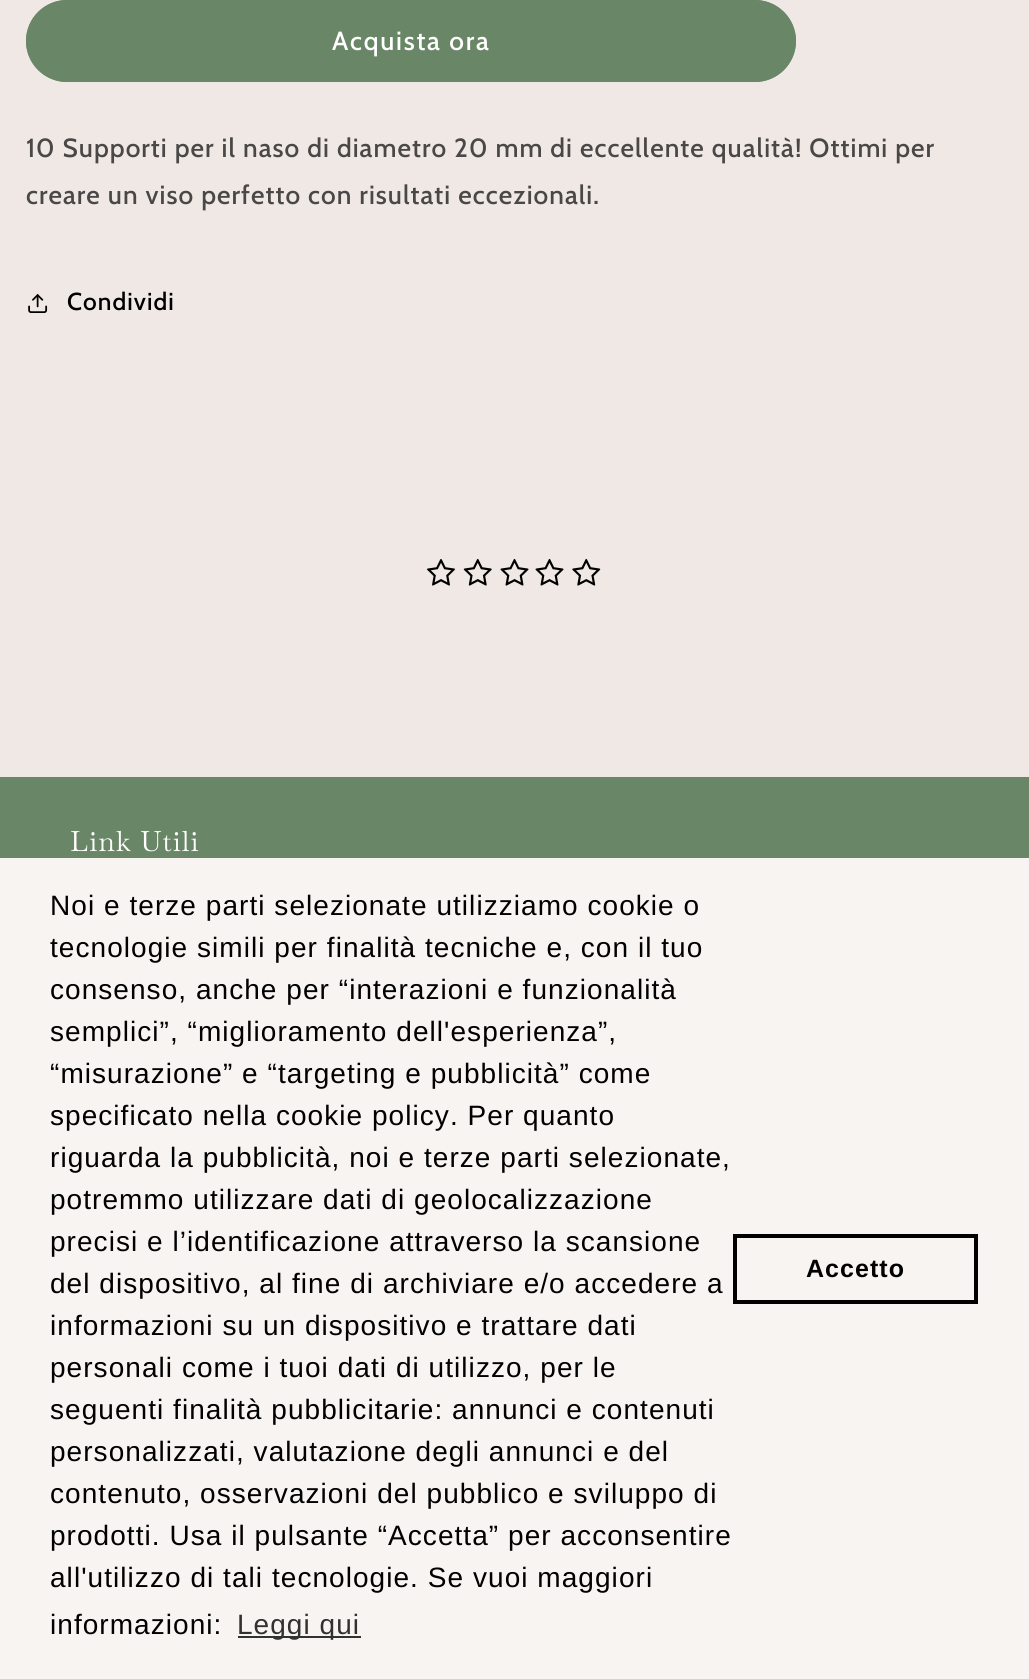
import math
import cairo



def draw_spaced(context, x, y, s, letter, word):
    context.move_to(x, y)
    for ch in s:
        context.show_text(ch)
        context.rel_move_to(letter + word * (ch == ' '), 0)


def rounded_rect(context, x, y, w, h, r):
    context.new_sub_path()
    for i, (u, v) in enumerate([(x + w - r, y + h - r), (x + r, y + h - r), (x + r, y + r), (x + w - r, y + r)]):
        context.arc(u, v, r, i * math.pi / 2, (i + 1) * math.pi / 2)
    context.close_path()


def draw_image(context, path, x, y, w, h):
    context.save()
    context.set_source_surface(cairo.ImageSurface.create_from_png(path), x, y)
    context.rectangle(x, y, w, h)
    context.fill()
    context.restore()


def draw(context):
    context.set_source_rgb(239 / 255, 232 / 255, 229 / 255)
    context.paint()
    context.set_source_rgb(105 / 255, 134 / 255, 102 / 255)
    rounded_rect(context, 26, 0, 770, 82, 41)
    context.fill()
    rounded_rect(context, 27, 1, 768, 80, 40)
    context.stroke()
    draw_image(context, "images/1.png", 28, 294, 20, 19)
    draw_image(context, "images/2.png", 427, 559, 28, 27)
    draw_image(context, "images/3.png", 463, 558, 29, 28)
    draw_image(context, "images/4.png", 500, 558, 29, 28)
    draw_image(context, "images/4.png", 535, 558, 29, 28)
    draw_image(context, "images/5.png", 572, 558, 29, 28)
    context.rectangle(0, 777, 1029, 81)
    context.fill()
    context.set_source_rgb(247 / 255, 244 / 255, 242 / 255)
    context.rectangle(0, 858, 1029, 821)
    context.fill()
    context.set_source_rgb(49 / 255, 49 / 255, 48 / 255)
    context.rectangle(238, 1636, 123, 2)
    context.fill()
    context.rectangle(735, 1236, 241, 66)
    context.set_source_rgb(0, 0, 0)
    context.set_line_width(4)
    context.stroke()
    context.select_font_face("Cabin Medium")
    context.set_font_size(26.25)
    context.set_source_rgb(1, 1, 1)
    draw_spaced(context, 332, 50, "Acquista ora", 1.75, 0)
    context.set_source_rgb(73 / 255, 72 / 255, 71 / 255)
    draw_spaced(context, 26, 157, "10 Supporti per il naso di diametro 20 mm di eccellente qualità! Ottimi per", 1.05, 0)
    draw_spaced(context, 26, 204, "creare un viso perfetto con risultati eccezionali.", 1.05, 0)
    context.set_font_size(24.5)
    context.set_source_rgb(0, 0, 0)
    draw_spaced(context, 67, 310, "Condividi", 1.05, 0)
    context.select_font_face("Baskervville")
    context.set_font_size(28)
    context.set_source_rgb(1, 1, 1)
    draw_spaced(context, 70, 851, "Link Utili", 1.05, 0)
    context.select_font_face("Liberation Sans")
    context.set_source_rgb(0, 0, 0)
    draw_spaced(context, 50, 915, "Noi e terze parti selezionate utilizziamo cookie o", 1.05, 0)
    draw_spaced(context, 50, 957, "tecnologie simili per finalità tecniche e, con il tuo", 1.05, 0)
    draw_spaced(context, 50, 999, "consenso, anche per “interazioni e funzionalità", 1.05, 0)
    draw_spaced(context, 50, 1041, "semplici”, “miglioramento dell'esperienza”,", 1.05, 0)
    draw_spaced(context, 50, 1083, "“misurazione” e “targeting e pubblicità” come", 1.05, 0)
    draw_spaced(context, 50, 1125, "specificato nella cookie policy. Per quanto", 1.05, 0)
    draw_spaced(context, 50, 1167, "riguarda la pubblicità, noi e terze parti selezionate,", 1.05, 0)
    draw_spaced(context, 50, 1209, "potremmo utilizzare dati di geolocalizzazione", 1.05, 0)
    draw_spaced(context, 50, 1251, "precisi e l’identificazione attraverso la scansione", 1.05, 0)
    draw_spaced(context, 50, 1293, "del dispositivo, al fine di archiviare e/o accedere a", 1.05, 0)
    draw_spaced(context, 50, 1335, "informazioni su un dispositivo e trattare dati", 1.05, 0)
    draw_spaced(context, 50, 1377, "personali come i tuoi dati di utilizzo, per le", 1.05, 0)
    draw_spaced(context, 50, 1419, "seguenti finalità pubblicitarie: annunci e contenuti", 1.05, 0)
    draw_spaced(context, 50, 1461, "personalizzati, valutazione degli annunci e del", 1.05, 0)
    draw_spaced(context, 50, 1503, "contenuto, osservazioni del pubblico e sviluppo di", 1.05, 0)
    draw_spaced(context, 50, 1545, "prodotti. Usa il pulsante “Accetta” per acconsentire", 1.05, 0)
    draw_spaced(context, 50, 1587, "all'utilizzo di tali tecnologie. Se vuoi maggiori", 1.05, 0)
    draw_spaced(context, 50, 1634, "informazioni:", 1.05, 0)
    context.set_source_rgb(49 / 255, 49 / 255, 48 / 255)
    draw_spaced(context, 237, 1634, "Leggi qui", 1.05, 0)
    context.select_font_face("Liberation Sans", cairo.FontSlant.NORMAL, cairo.FontWeight.BOLD)
    context.set_font_size(25)
    context.set_source_rgb(0, 0, 0)
    draw_spaced(context, 806, 1277, "Accetto", 1.05, 0)


surface = cairo.ImageSurface(cairo.Format.RGB24, 1029, 1679)
context = cairo.Context(surface)
options = cairo.FontOptions()
options.set_hint_metrics(cairo.HintMetrics.OFF)
options.set_hint_style(cairo.HintStyle.NONE)
context.set_font_options(options)
context.set_miter_limit(4)
draw(context)
surface.write_to_png("out.png")
